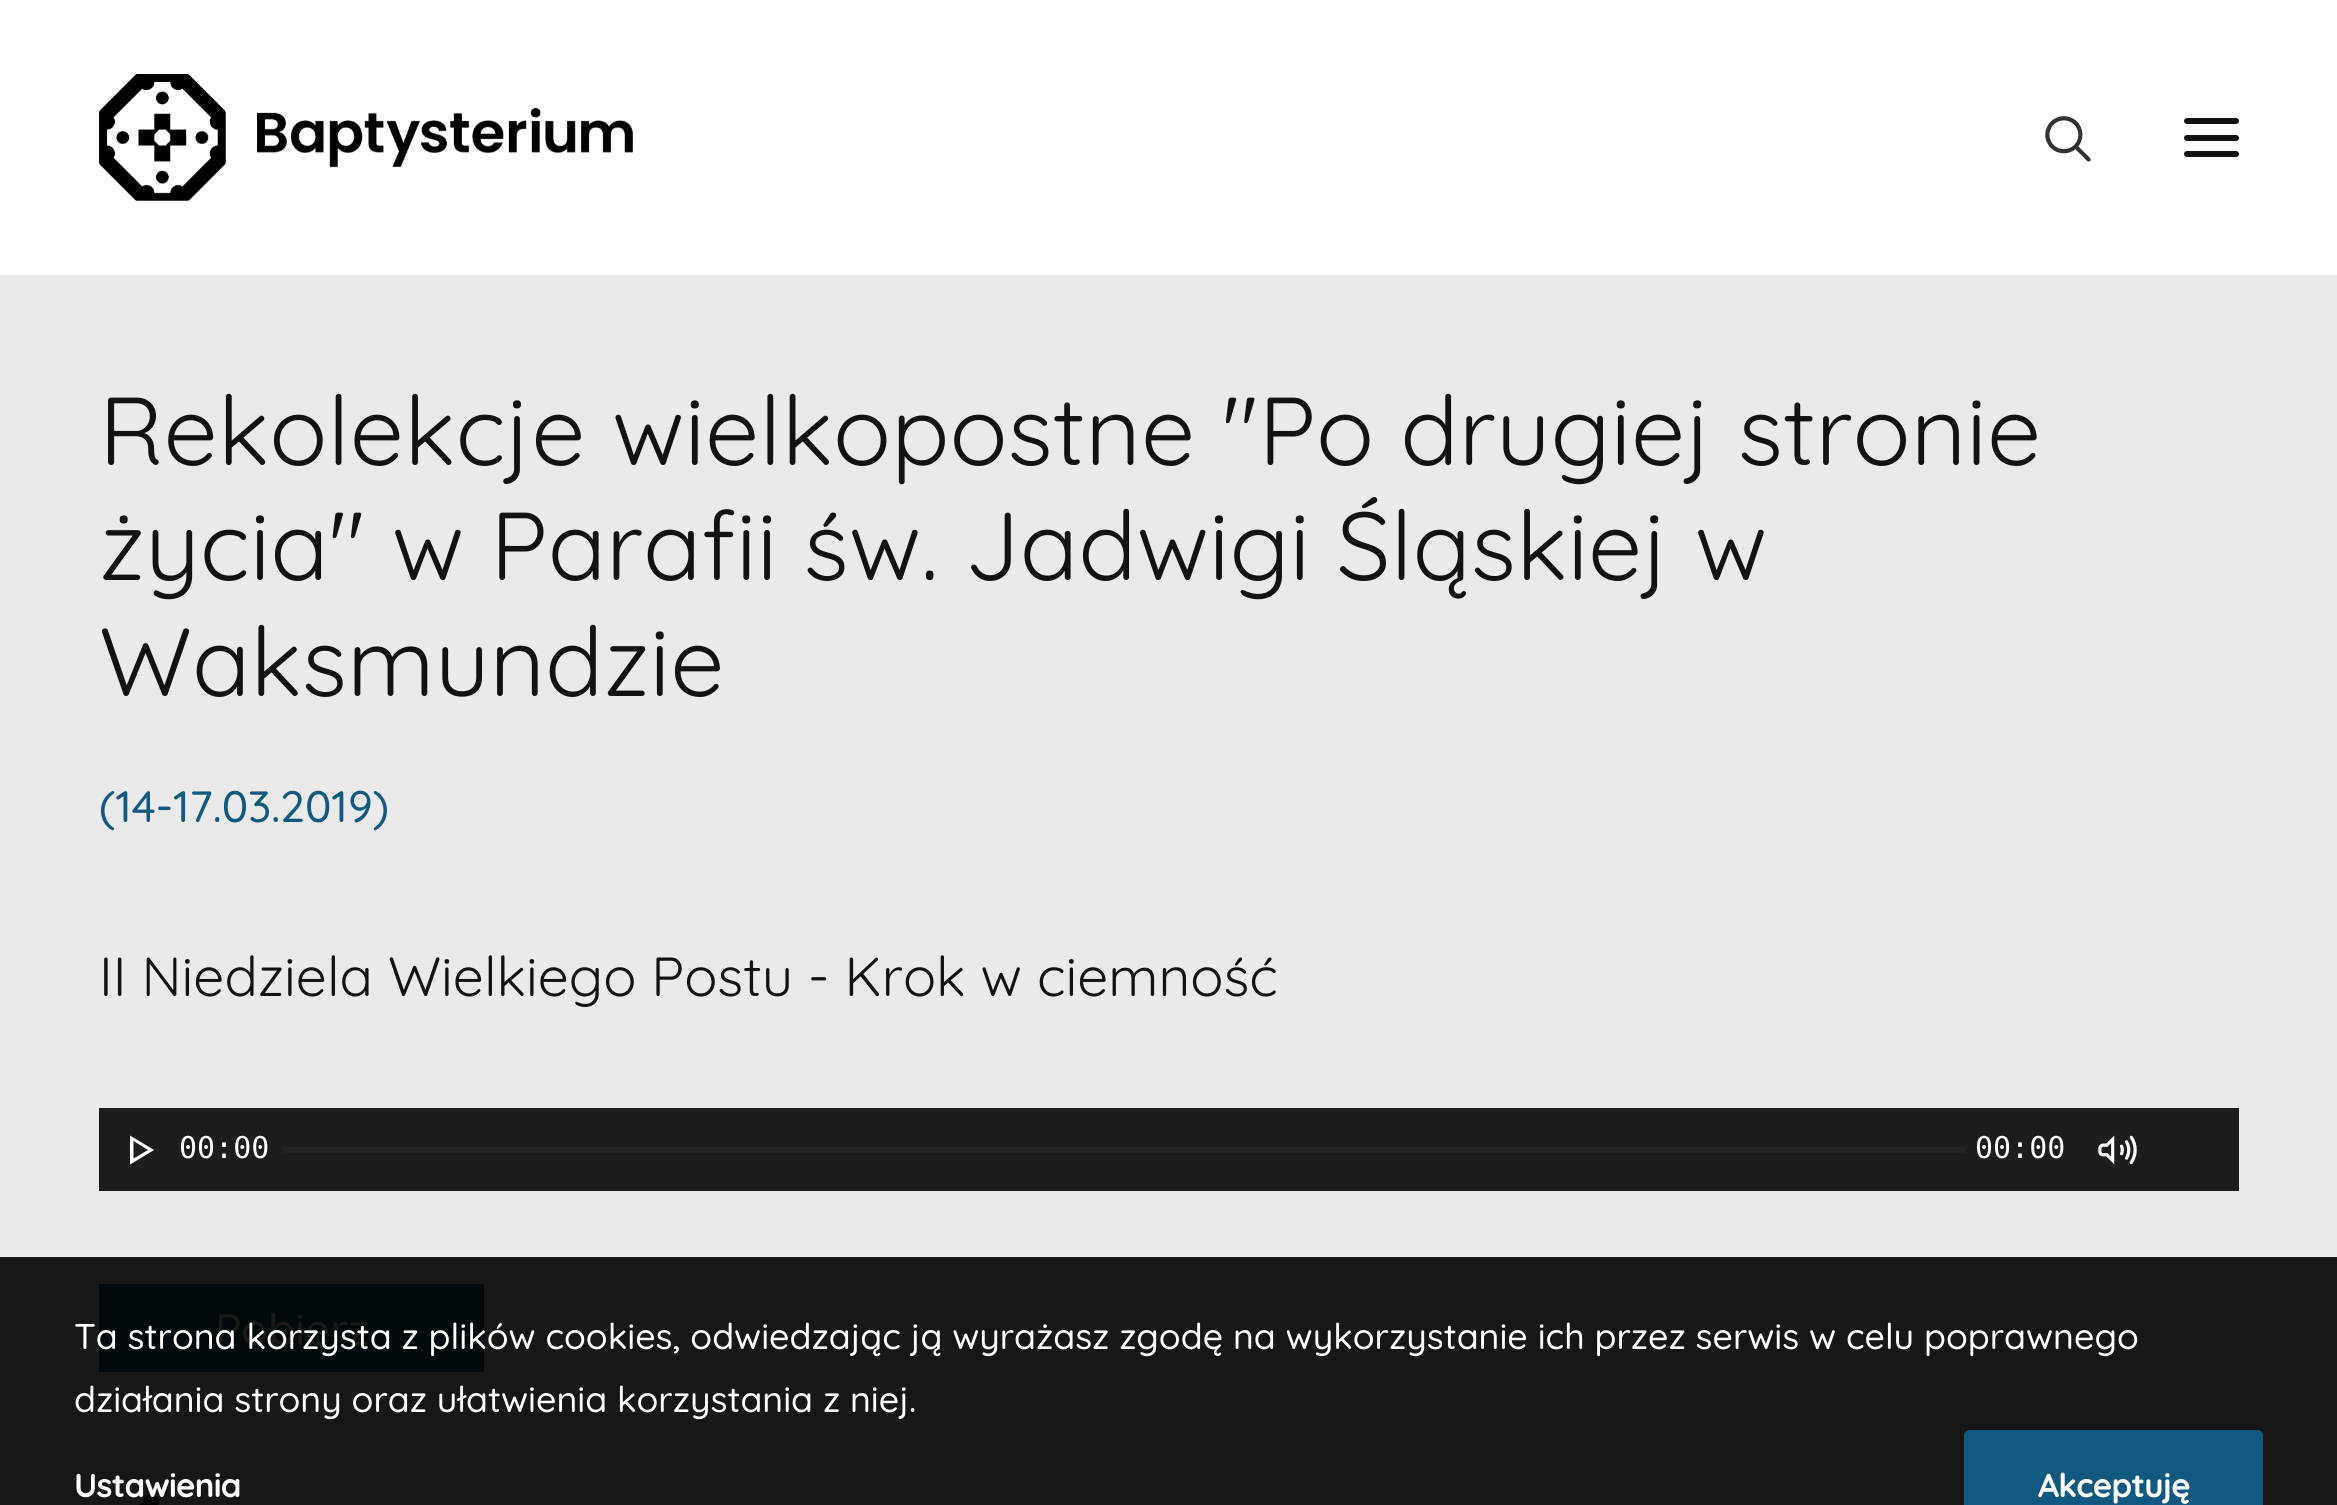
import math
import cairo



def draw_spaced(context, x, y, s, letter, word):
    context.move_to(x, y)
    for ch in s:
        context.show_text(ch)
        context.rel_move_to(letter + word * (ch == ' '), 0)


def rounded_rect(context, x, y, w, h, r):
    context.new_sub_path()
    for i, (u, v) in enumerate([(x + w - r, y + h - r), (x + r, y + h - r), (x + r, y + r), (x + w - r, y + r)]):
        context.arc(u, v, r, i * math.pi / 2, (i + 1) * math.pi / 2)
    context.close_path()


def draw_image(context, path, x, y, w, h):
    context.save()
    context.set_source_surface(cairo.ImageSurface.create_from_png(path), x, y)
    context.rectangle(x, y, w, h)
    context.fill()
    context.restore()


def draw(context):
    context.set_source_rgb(234 / 255, 234 / 255, 234 / 255)
    context.paint()
    context.set_source_rgb(1, 1, 1)
    context.rectangle(0, 0, 2337, 275)
    context.fill()
    draw_image(context, "images/1.png", 99, 74, 534, 127)
    draw_image(context, "images/2.png", 2045, 116, 46, 46)
    context.set_source_rgb(16 / 255, 18 / 255, 19 / 255)
    rounded_rect(context, 2184, 135, 55, 6, 3)
    context.fill()
    rounded_rect(context, 2184, 118, 55, 6, 3)
    context.fill()
    rounded_rect(context, 2184, 151, 55, 6, 3)
    context.fill()
    context.set_source_rgb(23 / 255, 23 / 255, 23 / 255)
    context.rectangle(0, 1257, 2337, 248)
    context.fill()
    context.set_source_rgb(27 / 255, 29 / 255, 31 / 255)
    context.rectangle(99, 1108, 2140, 83)
    context.fill()
    context.set_source_rgb(1, 1, 1)
    context.new_path()
    context.move_to(130, 1164.5)
    context.line_to(130, 1135.5)
    context.line_to(154, 1150)
    context.close_path()
    context.move_to(148, 1150)
    context.line_to(133.5, 1141)
    context.line_to(133.5, 1158.5)
    context.close_path()
    context.fill()
    context.set_source_rgb(34 / 255, 35 / 255, 36 / 255)
    context.rectangle(283, 1147, 1683, 6)
    context.fill()
    draw_image(context, "images/3.png", 2098, 1135, 39, 30)
    context.set_source_rgb(2 / 255, 9 / 255, 13 / 255)
    context.rectangle(99, 1284, 385, 88)
    context.fill()
    draw_image(context, "images/4.png", 138, 1494, 21, 11)
    context.set_source_rgb(18 / 255, 89 / 255, 130 / 255)
    context.new_path()
    context.move_to(1970, 1430)
    context.line_to(2257, 1430)
    context.curve_to(2260.5, 1430, 2263, 1432.5, 2263, 1436)
    context.line_to(2263, 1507)
    context.line_to(1964, 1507)
    context.line_to(1964, 1436)
    context.curve_to(1964, 1432.5, 1966.5, 1430, 1970, 1430)
    context.close_path()
    context.fill()
    context.select_font_face("Quicksand")
    context.set_font_size(96.25)
    context.set_source_rgb(16 / 255, 18 / 255, 19 / 255)
    context.move_to(99, 465)
    context.show_text("Rekolekcje wielkopostne \"Po drugiej stronie")
    context.move_to(99, 580)
    context.show_text("życia\" w Parafii św. Jadwigi Śląskiej w")
    context.move_to(99, 696)
    context.show_text("Waksmundzie")
    context.select_font_face("Quicksand Medium")
    context.set_font_size(44)
    context.set_source_rgb(18 / 255, 89 / 255, 130 / 255)
    context.move_to(99, 822)
    context.show_text("(14-17.03.2019)")
    context.select_font_face("Quicksand")
    context.set_font_size(55)
    context.set_source_rgb(16 / 255, 18 / 255, 19 / 255)
    context.move_to(99, 996)
    context.show_text("II Niedziela Wielkiego Postu - Krok w ciemność")
    context.select_font_face("DejaVu Sans Mono")
    context.set_font_size(30)
    context.set_source_rgb(1, 1, 1)
    context.move_to(179, 1158)
    context.show_text("00:00")
    context.move_to(1975, 1158)
    context.show_text("00:00")
    context.select_font_face("Quicksand Medium")
    context.set_font_size(44)
    context.set_source_rgb(25 / 255, 25 / 255, 25 / 255)
    context.move_to(215, 1345)
    context.show_text("Pobierz")
    context.set_font_size(35.75)
    context.set_source_rgb(1, 1, 1)
    context.move_to(74, 1349)
    context.show_text("Ta strona korzysta z plików cookies, odwiedzając ją wyrażasz zgodę na wykorzystanie ich przez serwis w celu poprawnego")
    context.move_to(74, 1412)
    context.show_text("działania strony oraz ułatwienia korzystania z niej.")
    context.select_font_face("Quicksand", cairo.FontSlant.NORMAL, cairo.FontWeight.BOLD)
    context.set_font_size(33)
    draw_spaced(context, 74, 1497, "Ustawienia", -0.75, 0)
    draw_spaced(context, 2038, 1497, "Akceptuję", -0.75, 0)


surface = cairo.ImageSurface(cairo.Format.RGB24, 2337, 1505)
context = cairo.Context(surface)
options = cairo.FontOptions()
options.set_hint_metrics(cairo.HintMetrics.OFF)
options.set_hint_style(cairo.HintStyle.NONE)
context.set_font_options(options)
context.set_miter_limit(4)
draw(context)
surface.write_to_png("out.png")
